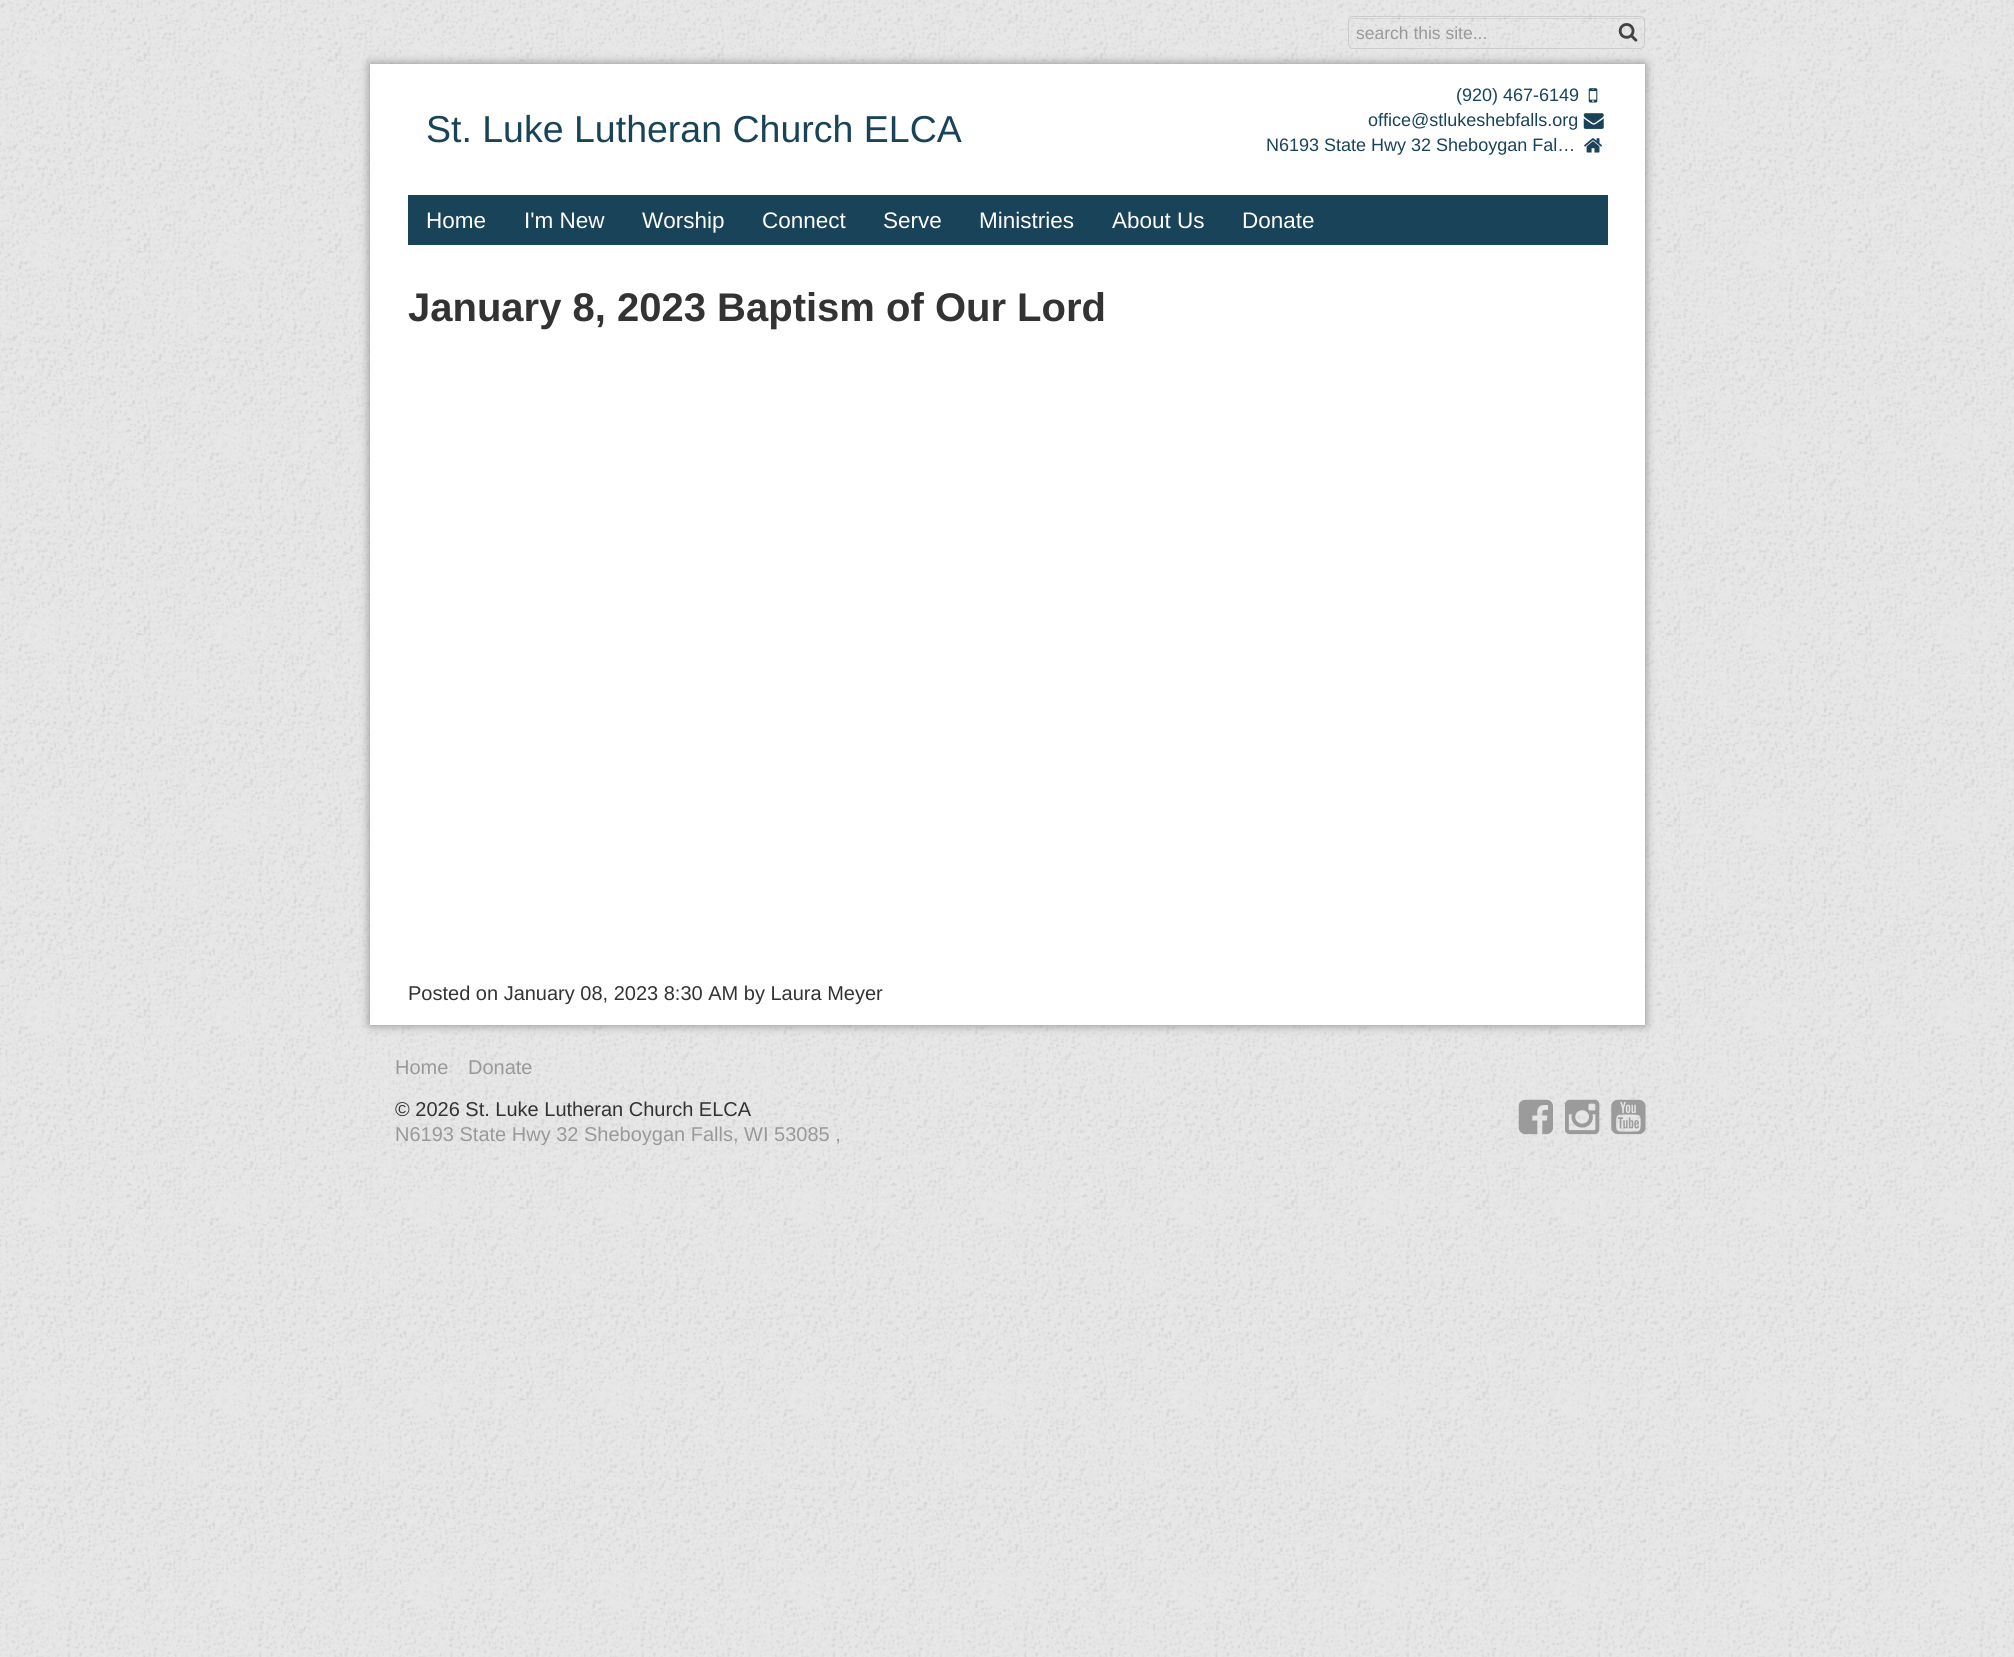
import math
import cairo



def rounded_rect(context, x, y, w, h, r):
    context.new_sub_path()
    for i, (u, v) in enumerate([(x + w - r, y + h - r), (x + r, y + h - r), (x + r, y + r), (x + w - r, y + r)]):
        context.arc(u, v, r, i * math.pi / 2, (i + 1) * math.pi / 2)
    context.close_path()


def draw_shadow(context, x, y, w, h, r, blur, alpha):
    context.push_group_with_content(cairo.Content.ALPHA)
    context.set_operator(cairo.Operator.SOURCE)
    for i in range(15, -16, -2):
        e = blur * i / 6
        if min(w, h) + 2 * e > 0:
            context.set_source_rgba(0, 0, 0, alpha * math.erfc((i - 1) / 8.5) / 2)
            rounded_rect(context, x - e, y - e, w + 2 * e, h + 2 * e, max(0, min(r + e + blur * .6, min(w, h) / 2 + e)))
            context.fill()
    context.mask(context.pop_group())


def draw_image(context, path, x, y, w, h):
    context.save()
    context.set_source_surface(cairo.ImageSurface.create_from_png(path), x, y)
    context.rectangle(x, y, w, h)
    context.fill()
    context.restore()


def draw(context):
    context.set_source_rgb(231 / 255, 231 / 255, 231 / 255)
    context.paint()
    draw_image(context, "images/1.png", 0, 0, 2014, 1657)
    context.set_source_rgba(0, 0, 0, 0.07)
    context.new_path()
    context.move_to(1352, 19)
    context.line_to(1640, 19)
    context.curve_to(1642, 19, 1644, 20, 1644, 22)
    context.curve_to(1644, 20, 1642, 18, 1640, 18)
    context.line_to(1353, 18)
    context.curve_to(1352, 18, 1350, 19, 1350, 20)
    context.close_path()
    context.fill()
    rounded_rect(context, 1348.5, 16.5, 296, 32, 4.5)
    context.set_source_rgb(204 / 255, 204 / 255, 204 / 255)
    context.set_line_width(1)
    context.stroke()
    draw_image(context, "images/2.png", 1618, 23, 20, 19)
    context.set_source_rgb(136 / 255, 136 / 255, 136 / 255)
    draw_shadow(context, 370, 64, 1275, 961, 0, 5, 1)
    context.set_source_rgb(1, 1, 1)
    context.rectangle(370, 64, 1275, 961)
    context.fill()
    draw_image(context, "images/3.png", 1588, 88, 10, 15)
    draw_image(context, "images/4.png", 1583, 113, 21, 16)
    draw_image(context, "images/5.png", 1584, 138, 18, 15)
    context.set_source_rgb(25 / 255, 67 / 255, 89 / 255)
    context.rectangle(408, 195, 1200, 50)
    context.fill()
    draw_image(context, "images/6.png", 1518, 1099, 35, 36)
    draw_image(context, "images/7.png", 1565, 1099, 35, 36)
    draw_image(context, "images/8.png", 1611, 1099, 35, 36)
    context.select_font_face("Liberation Sans")
    context.set_font_size(17.5)
    context.set_source_rgb(153 / 255, 153 / 255, 153 / 255)
    context.move_to(1356, 39)
    context.show_text("search this site...")
    context.set_font_size(37.5)
    context.set_source_rgb(25 / 255, 67 / 255, 89 / 255)
    context.move_to(426, 142)
    context.show_text("St. Luke Lutheran Church ELCA")
    context.set_font_size(18)
    context.move_to(1456, 101)
    context.show_text("(920) 467-6149")
    context.move_to(1368, 126)
    context.show_text("office@stlukeshebfalls.org")
    context.move_to(1266, 151)
    context.show_text("N6193 State Hwy 32 Sheboygan Fal…")
    context.set_font_size(22.5)
    context.set_source_rgb(1, 1, 1)
    context.move_to(426, 228)
    context.show_text("Home")
    context.move_to(524, 228)
    context.show_text("I'm New")
    context.move_to(642, 228)
    context.show_text("Worship")
    context.move_to(762, 228)
    context.show_text("Connect")
    context.move_to(883, 228)
    context.show_text("Serve")
    context.move_to(979, 228)
    context.show_text("Ministries")
    context.move_to(1112, 228)
    context.show_text("About Us")
    context.move_to(1242, 228)
    context.show_text("Donate")
    context.select_font_face("Liberation Sans", cairo.FontSlant.NORMAL, cairo.FontWeight.BOLD)
    context.set_font_size(40)
    context.set_source_rgb(51 / 255, 51 / 255, 51 / 255)
    context.move_to(408, 321)
    context.show_text("January 8, 2023 Baptism of Our Lord")
    context.select_font_face("Liberation Sans")
    context.set_font_size(20)
    context.move_to(408, 1000)
    context.show_text("Posted on January 08, 2023 8:30 AM by Laura Meyer")
    context.set_source_rgb(153 / 255, 153 / 255, 153 / 255)
    context.move_to(395, 1074)
    context.show_text("Home")
    context.move_to(468, 1074)
    context.show_text("Donate")
    context.set_source_rgb(51 / 255, 51 / 255, 51 / 255)
    context.move_to(395, 1116)
    context.show_text("© 2026 St. Luke Lutheran Church ELCA")
    context.set_source_rgb(153 / 255, 153 / 255, 153 / 255)
    context.move_to(395, 1141)
    context.show_text("N6193 State Hwy 32 Sheboygan Falls, WI 53085 ,")


surface = cairo.ImageSurface(cairo.Format.RGB24, 2014, 1657)
context = cairo.Context(surface)
options = cairo.FontOptions()
options.set_hint_metrics(cairo.HintMetrics.OFF)
options.set_hint_style(cairo.HintStyle.NONE)
context.set_font_options(options)
context.set_miter_limit(4)
draw(context)
surface.write_to_png("out.png")
